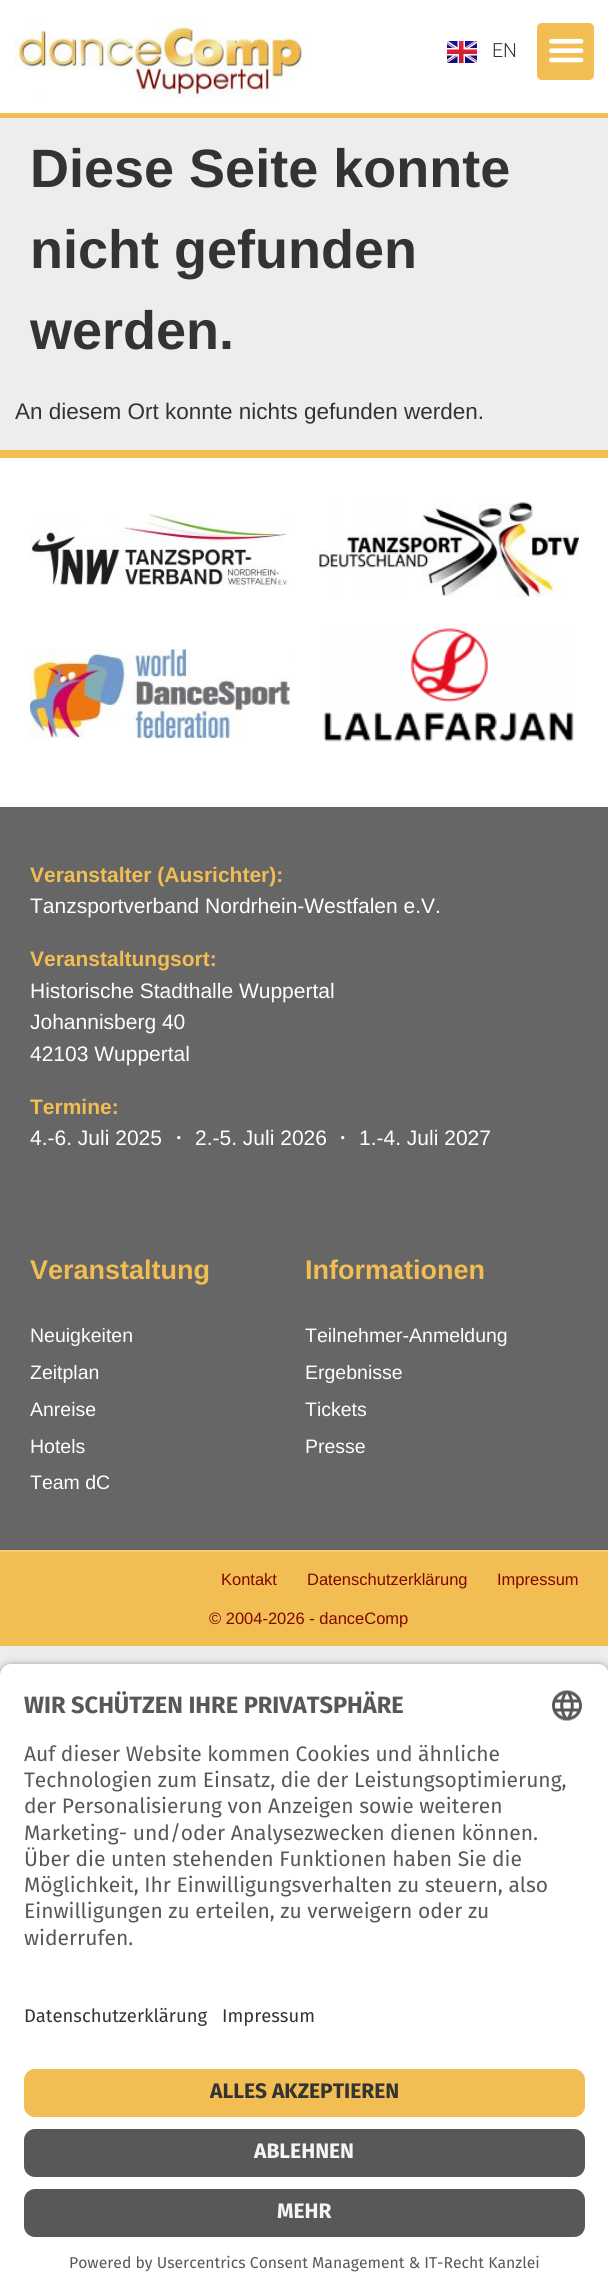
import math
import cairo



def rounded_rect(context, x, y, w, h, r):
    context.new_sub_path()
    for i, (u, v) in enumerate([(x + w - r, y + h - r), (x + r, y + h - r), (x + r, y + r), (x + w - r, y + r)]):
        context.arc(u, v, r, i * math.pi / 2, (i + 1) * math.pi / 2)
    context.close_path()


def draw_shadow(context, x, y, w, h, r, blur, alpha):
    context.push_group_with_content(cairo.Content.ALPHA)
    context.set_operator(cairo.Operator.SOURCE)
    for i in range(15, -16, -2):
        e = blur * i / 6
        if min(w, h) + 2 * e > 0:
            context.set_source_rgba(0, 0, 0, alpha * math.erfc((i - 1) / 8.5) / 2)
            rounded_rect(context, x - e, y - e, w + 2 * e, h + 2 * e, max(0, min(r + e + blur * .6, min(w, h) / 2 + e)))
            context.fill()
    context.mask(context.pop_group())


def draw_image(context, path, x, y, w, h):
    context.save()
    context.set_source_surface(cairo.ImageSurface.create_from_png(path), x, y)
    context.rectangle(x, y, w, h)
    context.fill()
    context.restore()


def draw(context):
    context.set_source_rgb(237 / 255, 237 / 255, 237 / 255)
    context.paint()
    context.set_source_rgb(1, 1, 1)
    context.rectangle(0, 0, 608, 113)
    context.fill()
    context.set_source_rgb(242 / 255, 189 / 255, 82 / 255)
    context.rectangle(0, 113, 608, 5)
    context.fill()
    draw_image(context, "images/1.png", 15, 22, 290, 76)
    draw_image(context, "images/2.png", 447, 41, 30, 22)
    rounded_rect(context, 537, 23, 57, 57, 5)
    context.fill()
    draw_image(context, "images/3.png", 549, 38, 35, 25)
    context.rectangle(0, 450, 608, 8)
    context.fill()
    context.set_source_rgb(1, 1, 1)
    context.rectangle(0, 458, 608, 349)
    context.fill()
    draw_image(context, "images/4.png", 30, 513, 260, 74)
    draw_image(context, "images/5.png", 319, 502, 260, 95)
    draw_image(context, "images/6.png", 30, 649, 260, 89)
    draw_image(context, "images/7.png", 323, 628, 251, 114)
    context.set_source_rgb(102 / 255, 102 / 255, 102 / 255)
    context.rectangle(0, 807, 608, 743)
    context.fill()
    context.set_source_rgb(242 / 255, 189 / 255, 82 / 255)
    context.rectangle(0, 1552, 608, 94)
    context.fill()
    context.set_source_rgb(244 / 255, 202 / 255, 115 / 255)
    context.rectangle(0, 1550, 608, 2)
    context.fill()
    context.set_source_rgb(0, 0, 0)
    draw_shadow(context, 0, 1668, 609, 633, 11, 5, 0.8)
    context.set_source_rgb(1, 1, 1)
    context.new_path()
    context.move_to(11, 1664)
    context.line_to(598, 1664)
    context.curve_to(604, 1664, 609, 1669, 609, 1675)
    context.line_to(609, 1982)
    context.line_to(0, 1982)
    context.line_to(0, 1675)
    context.curve_to(0, 1669, 5, 1664, 11, 1664)
    context.close_path()
    context.fill()
    draw_image(context, "images/8.png", 552, 1690, 30, 31)
    context.rectangle(0, 1982, 608, 314)
    context.fill()
    context.set_source_rgb(242 / 255, 189 / 255, 82 / 255)
    rounded_rect(context, 24, 2069, 561, 48, 11)
    context.fill()
    context.set_source_rgb(88 / 255, 88 / 255, 88 / 255)
    rounded_rect(context, 24, 2129, 561, 48, 11)
    context.fill()
    rounded_rect(context, 24, 2189, 561, 48, 11)
    context.fill()
    context.select_font_face("Roboto Light")
    context.set_font_size(19.5)
    context.set_source_rgb(51 / 255, 51 / 255, 51 / 255)
    context.move_to(492, 57)
    context.show_text("EN")
    context.select_font_face("Liberation Sans", cairo.FontSlant.NORMAL, cairo.FontWeight.BOLD)
    context.set_font_size(54)
    context.move_to(30, 187)
    context.show_text("Diese Seite konnte")
    context.move_to(30, 268)
    context.show_text("nicht gefunden")
    context.move_to(30, 349)
    context.show_text("werden.")
    context.select_font_face("Liberation Sans")
    context.set_font_size(22.5)
    context.move_to(15, 419)
    context.show_text("An diesem Ort konnte nichts gefunden werden.")
    context.select_font_face("Liberation Sans", cairo.FontSlant.NORMAL, cairo.FontWeight.BOLD)
    context.set_font_size(21)
    context.set_source_rgb(242 / 255, 189 / 255, 82 / 255)
    context.move_to(30, 882)
    context.show_text("Veranstalter (Ausrichter):")
    context.select_font_face("Liberation Sans")
    context.set_source_rgb(1, 1, 1)
    context.move_to(30, 913)
    context.show_text("Tanzsportverband Nordrhein-Westfalen e.V.")
    context.select_font_face("Liberation Sans", cairo.FontSlant.NORMAL, cairo.FontWeight.BOLD)
    context.set_source_rgb(242 / 255, 189 / 255, 82 / 255)
    context.move_to(30, 966)
    context.show_text("Veranstaltungsort:")
    context.select_font_face("Liberation Sans")
    context.set_source_rgb(1, 1, 1)
    context.move_to(30, 998)
    context.show_text("Historische Stadthalle Wuppertal")
    context.move_to(30, 1029)
    context.show_text("Johannisberg 40")
    context.move_to(30, 1061)
    context.show_text("42103 Wuppertal")
    context.select_font_face("Liberation Sans", cairo.FontSlant.NORMAL, cairo.FontWeight.BOLD)
    context.set_source_rgb(242 / 255, 189 / 255, 82 / 255)
    context.move_to(30, 1114)
    context.show_text("Termine:")
    context.select_font_face("Liberation Sans")
    context.set_source_rgb(1, 1, 1)
    context.move_to(30, 1145)
    context.show_text("4.-6. Juli 2025")
    context.select_font_face("WenQuanYi Zen Hei Medium")
    context.move_to(168, 1145)
    context.show_text("・")
    context.select_font_face("Liberation Sans")
    context.move_to(195, 1145)
    context.show_text("2.-5. Juli 2026")
    context.select_font_face("WenQuanYi Zen Hei Medium")
    context.move_to(332, 1145)
    context.show_text("・")
    context.select_font_face("Liberation Sans")
    context.move_to(359, 1145)
    context.show_text("1.-4. Juli 2027")
    context.select_font_face("Liberation Sans", cairo.FontSlant.NORMAL, cairo.FontWeight.BOLD)
    context.set_font_size(27)
    context.set_source_rgb(242 / 255, 189 / 255, 82 / 255)
    context.move_to(30, 1279)
    context.show_text("Veranstaltung")
    context.select_font_face("Liberation Sans")
    context.set_font_size(19.5)
    context.set_source_rgb(1, 1, 1)
    context.move_to(30, 1342)
    context.show_text("Neuigkeiten")
    context.move_to(30, 1379)
    context.show_text("Zeitplan")
    context.move_to(30, 1416)
    context.show_text("Anreise")
    context.move_to(30, 1453)
    context.show_text("Hotels")
    context.move_to(30, 1489)
    context.show_text("Team dC")
    context.select_font_face("Liberation Sans", cairo.FontSlant.NORMAL, cairo.FontWeight.BOLD)
    context.set_font_size(27)
    context.set_source_rgb(242 / 255, 189 / 255, 82 / 255)
    context.move_to(305, 1279)
    context.show_text("Informationen")
    context.select_font_face("Liberation Sans")
    context.set_font_size(19.5)
    context.set_source_rgb(1, 1, 1)
    context.move_to(305, 1342)
    context.show_text("Teilnehmer-Anmeldung")
    context.move_to(305, 1379)
    context.show_text("Ergebnisse")
    context.move_to(305, 1416)
    context.show_text("Tickets")
    context.move_to(305, 1453)
    context.show_text("Presse")
    context.set_font_size(16.5)
    context.set_source_rgb(128 / 255, 7 / 255, 0)
    context.move_to(221, 1585)
    context.show_text("Kontakt")
    context.move_to(307, 1585)
    context.show_text("Datenschutzerklärung")
    context.move_to(497, 1585)
    context.show_text("Impressum")
    context.move_to(209, 1624)
    context.show_text("© 2004-2026 - danceComp")
    context.select_font_face("Fira Sans", cairo.FontSlant.NORMAL, cairo.FontWeight.BOLD)
    context.set_font_size(23.6)
    context.set_source_rgb(89 / 255, 88 / 255, 87 / 255)
    context.move_to(24, 1713)
    context.show_text("WIR SCHÜTZEN IHRE PRIVATSPHÄRE")
    context.select_font_face("Fira Sans")
    context.set_font_size(21)
    context.move_to(24, 1761)
    context.show_text("Auf dieser Website kommen Cookies und ähnliche")
    context.move_to(24, 1787)
    context.show_text("Technologien zum Einsatz, die der Leistungsoptimierung,")
    context.move_to(24, 1813)
    context.show_text("der Personalisierung von Anzeigen sowie weiteren")
    context.move_to(24, 1840)
    context.show_text("Marketing- und/oder Analysezwecken dienen können.")
    context.move_to(24, 1866)
    context.show_text("Über die unten stehenden Funktionen haben Sie die")
    context.move_to(24, 1892)
    context.show_text("Möglichkeit, Ihr Einwilligungsverhalten zu steuern, also")
    context.move_to(24, 1918)
    context.show_text("Einwilligungen zu erteilen, zu verweigern oder zu")
    context.move_to(24, 1945)
    context.show_text("widerrufen.")
    context.set_font_size(18.4)
    context.set_source_rgb(51 / 255, 51 / 255, 51 / 255)
    context.move_to(24, 2022)
    context.show_text("Datenschutzerklärung")
    context.move_to(222, 2022)
    context.show_text("Impressum")
    context.select_font_face("Fira Sans", cairo.FontSlant.NORMAL, cairo.FontWeight.BOLD)
    context.set_font_size(21)
    context.move_to(210, 2098)
    context.show_text("ALLES AKZEPTIEREN")
    context.set_source_rgb(245 / 255, 245 / 255, 245 / 255)
    context.move_to(254, 2158)
    context.show_text("ABLEHNEN")
    context.move_to(277, 2218)
    context.show_text("MEHR")
    context.select_font_face("Fira Sans")
    context.set_font_size(15.75)
    context.set_source_rgb(89 / 255, 88 / 255, 87 / 255)
    context.move_to(69, 2268)
    context.show_text("Powered by Usercentrics Consent Management & IT-Recht Kanzlei")


surface = cairo.ImageSurface(cairo.Format.RGB24, 608, 2296)
context = cairo.Context(surface)
options = cairo.FontOptions()
options.set_hint_metrics(cairo.HintMetrics.OFF)
options.set_hint_style(cairo.HintStyle.NONE)
context.set_font_options(options)
context.set_miter_limit(4)
draw(context)
surface.write_to_png("out.png")
